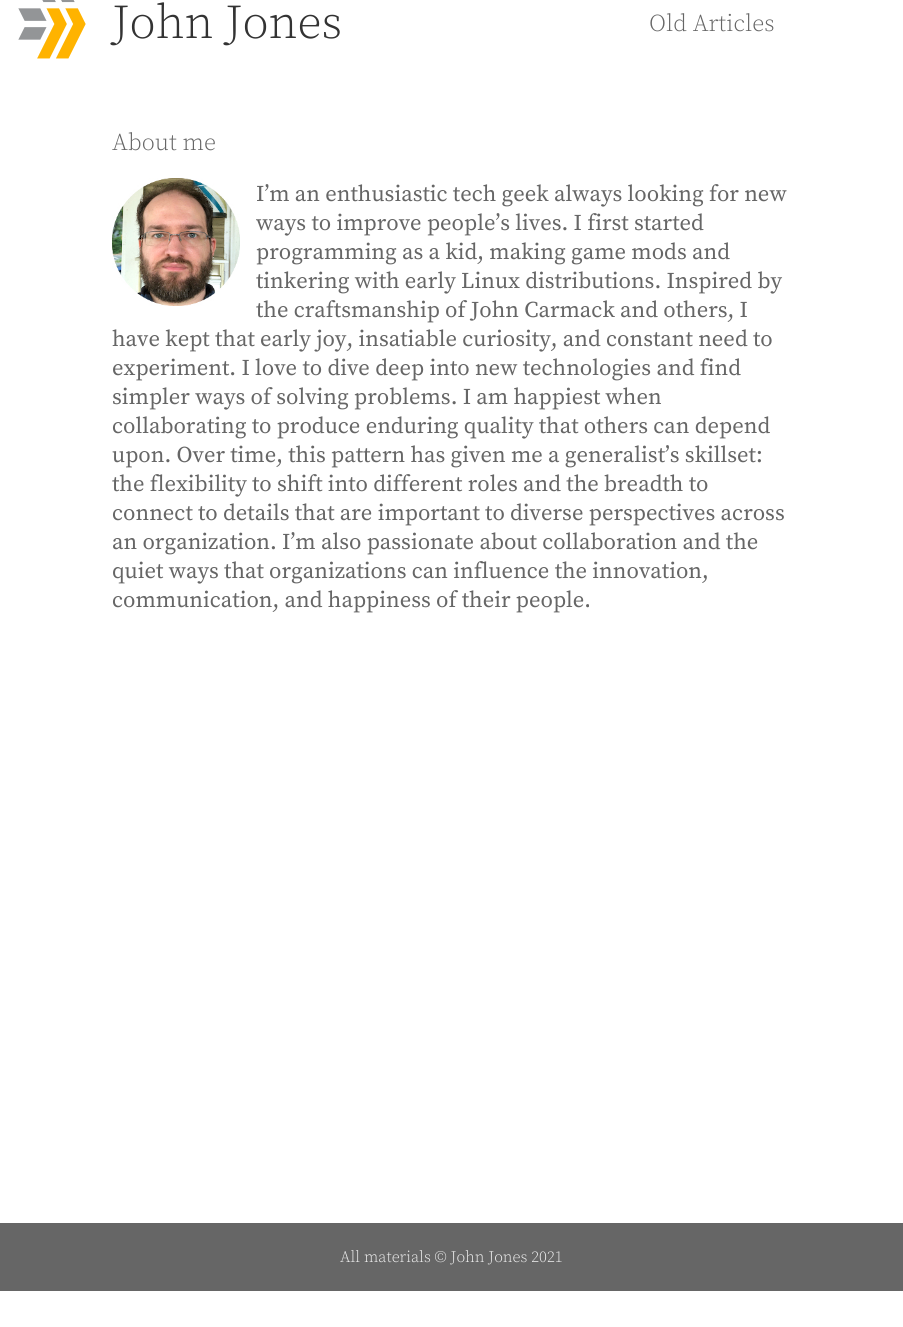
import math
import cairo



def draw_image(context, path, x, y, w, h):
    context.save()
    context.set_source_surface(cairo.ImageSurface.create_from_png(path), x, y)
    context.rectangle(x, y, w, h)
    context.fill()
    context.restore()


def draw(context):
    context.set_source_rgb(1, 1, 1)
    context.paint()
    draw_image(context, "images/1.png", 18, 0, 68, 59)
    draw_image(context, "images/2.png", 112, 178, 128, 128)
    context.set_source_rgb(102 / 255, 102 / 255, 102 / 255)
    context.rectangle(0, 1223, 903, 68)
    context.fill()
    context.select_font_face("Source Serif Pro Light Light")
    context.set_font_size(48)
    context.set_source_rgb(51 / 255, 51 / 255, 51 / 255)
    context.move_to(112, 38)
    context.show_text("John Jones")
    context.set_font_size(24)
    context.set_source_rgb(102 / 255, 102 / 255, 102 / 255)
    context.move_to(649, 31)
    context.show_text("Old Articles")
    context.move_to(112, 150)
    context.show_text("About me")
    context.select_font_face("Source Serif Pro")
    context.set_font_size(22.6)
    context.move_to(256, 201)
    context.show_text("I’m an enthusiastic tech geek always looking for new")
    context.move_to(256, 230)
    context.show_text("ways to improve people’s lives. I first started")
    context.move_to(256, 259)
    context.show_text("programming as a kid, making game mods and")
    context.move_to(256, 288)
    context.show_text("tinkering with early Linux distributions. Inspired by")
    context.move_to(256, 317)
    context.show_text("the craftsmanship of John Carmack and others, I")
    context.move_to(112, 346)
    context.show_text("have kept that early joy, insatiable curiosity, and constant need to")
    context.move_to(112, 375)
    context.show_text("experiment. I love to dive deep into new technologies and find")
    context.move_to(112, 404)
    context.show_text("simpler ways of solving problems. I am happiest when")
    context.move_to(112, 433)
    context.show_text("collaborating to produce enduring quality that others can depend")
    context.move_to(112, 462)
    context.show_text("upon. Over time, this pattern has given me a generalist’s skillset:")
    context.move_to(112, 491)
    context.show_text("the flexibility to shift into different roles and the breadth to")
    context.move_to(112, 520)
    context.show_text("connect to details that are important to diverse perspectives across")
    context.move_to(112, 549)
    context.show_text("an organization. I’m also passionate about collaboration and the")
    context.move_to(112, 578)
    context.show_text("quiet ways that organizations can influence the innovation,")
    context.move_to(112, 607)
    context.show_text("communication, and happiness of their people.")
    context.select_font_face("Source Serif Pro Light Light")
    context.set_font_size(16)
    context.set_source_rgb(238 / 255, 238 / 255, 238 / 255)
    context.move_to(340, 1262)
    context.show_text("All materials © John Jones 2021")


surface = cairo.ImageSurface(cairo.Format.RGB24, 903, 1327)
context = cairo.Context(surface)
options = cairo.FontOptions()
options.set_hint_metrics(cairo.HintMetrics.OFF)
options.set_hint_style(cairo.HintStyle.NONE)
context.set_font_options(options)
context.set_miter_limit(4)
draw(context)
surface.write_to_png("out.png")
